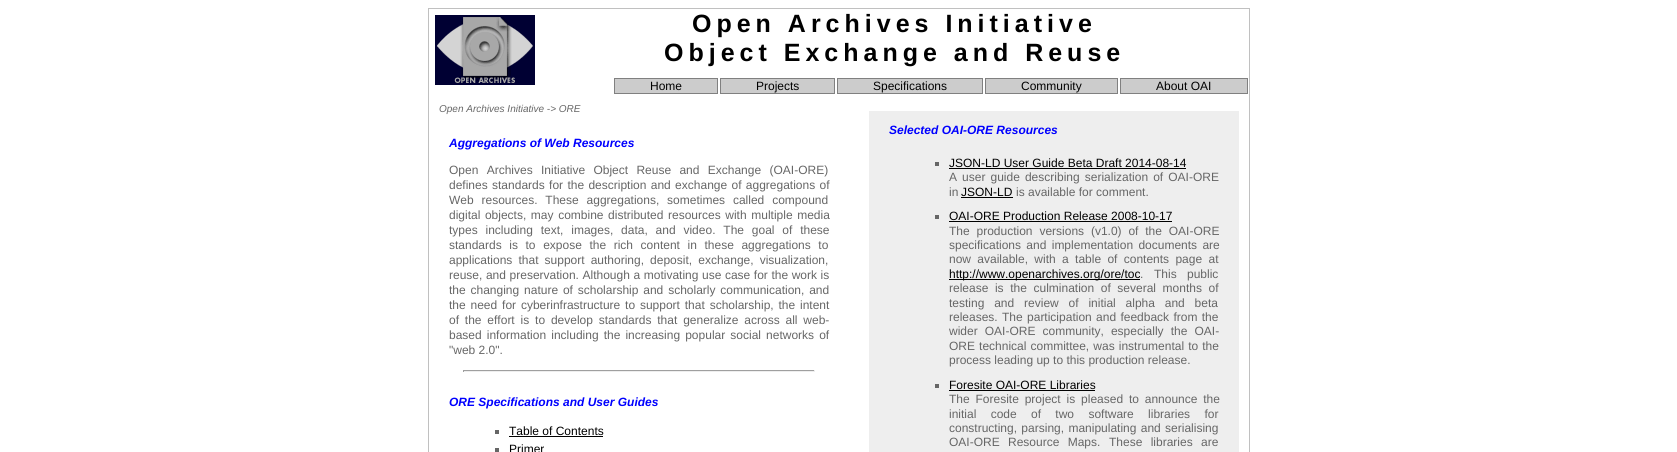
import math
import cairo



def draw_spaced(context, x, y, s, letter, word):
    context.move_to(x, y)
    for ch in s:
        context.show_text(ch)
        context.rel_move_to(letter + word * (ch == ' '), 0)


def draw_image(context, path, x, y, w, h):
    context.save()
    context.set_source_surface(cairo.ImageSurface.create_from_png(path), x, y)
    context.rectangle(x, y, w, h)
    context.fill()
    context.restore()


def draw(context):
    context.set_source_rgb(1, 1, 1)
    context.paint()
    context.rectangle(428.5, 8.5, 821, 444)
    context.set_source_rgb(192 / 255, 192 / 255, 192 / 255)
    context.set_line_width(1)
    context.stroke()
    draw_image(context, "images/1.png", 435, 15, 100, 70)
    context.set_source_rgb(204 / 255, 204 / 255, 204 / 255)
    context.rectangle(614.5, 78.5, 103, 15)
    context.fill_preserve()
    context.set_source_rgb(128 / 255, 128 / 255, 128 / 255)
    context.stroke()
    context.set_source_rgb(204 / 255, 204 / 255, 204 / 255)
    context.rectangle(720.5, 78.5, 114, 15)
    context.fill_preserve()
    context.set_source_rgb(128 / 255, 128 / 255, 128 / 255)
    context.stroke()
    context.set_source_rgb(204 / 255, 204 / 255, 204 / 255)
    context.rectangle(837.5, 78.5, 145, 15)
    context.fill_preserve()
    context.set_source_rgb(128 / 255, 128 / 255, 128 / 255)
    context.stroke()
    context.set_source_rgb(204 / 255, 204 / 255, 204 / 255)
    context.rectangle(985.5, 78.5, 132, 15)
    context.fill_preserve()
    context.set_source_rgb(128 / 255, 128 / 255, 128 / 255)
    context.stroke()
    context.set_source_rgb(204 / 255, 204 / 255, 204 / 255)
    context.rectangle(1120.5, 78.5, 127, 15)
    context.fill_preserve()
    context.set_source_rgb(128 / 255, 128 / 255, 128 / 255)
    context.stroke()
    context.set_source_rgb(159 / 255, 159 / 255, 159 / 255)
    context.rectangle(463, 370, 352, 1)
    context.fill()
    context.set_source_rgb(238 / 255, 238 / 255, 238 / 255)
    context.rectangle(814, 370, 1, 2)
    context.fill()
    context.rectangle(463, 371, 352, 1)
    context.fill()
    context.set_source_rgb(159 / 255, 159 / 255, 159 / 255)
    context.rectangle(463, 370, 1, 2)
    context.fill()
    context.set_source_rgb(102 / 255, 102 / 255, 102 / 255)
    context.rectangle(495, 430, 4, 4)
    context.fill()
    context.set_source_rgb(0, 0, 0)
    context.rectangle(509, 436, 94, 1)
    context.fill()
    context.set_source_rgb(102 / 255, 102 / 255, 102 / 255)
    context.rectangle(495, 448, 4, 4)
    context.fill()
    context.set_source_rgb(238 / 255, 238 / 255, 238 / 255)
    context.rectangle(869, 111, 370, 341)
    context.fill()
    context.set_source_rgb(102 / 255, 102 / 255, 102 / 255)
    context.rectangle(935, 162, 4, 4)
    context.fill()
    context.set_source_rgb(0, 0, 0)
    context.rectangle(949, 168, 237, 1)
    context.fill()
    context.rectangle(961, 197, 52, 1)
    context.fill()
    context.set_source_rgb(102 / 255, 102 / 255, 102 / 255)
    context.rectangle(935, 215, 4, 4)
    context.fill()
    context.set_source_rgb(0, 0, 0)
    context.rectangle(949, 221, 223, 1)
    context.fill()
    context.rectangle(949, 279, 191, 1)
    context.fill()
    context.set_source_rgb(102 / 255, 102 / 255, 102 / 255)
    context.rectangle(935, 384, 4, 4)
    context.fill()
    context.set_source_rgb(0, 0, 0)
    context.rectangle(949, 390, 146, 1)
    context.fill()
    context.select_font_face("Liberation Sans", cairo.FontSlant.NORMAL, cairo.FontWeight.BOLD)
    context.set_font_size(25)
    draw_spaced(context, 692, 32, "Open Archives Initiative", 5, 0)
    draw_spaced(context, 664, 61, "Object Exchange and Reuse", 5, 0)
    context.select_font_face("Liberation Sans")
    context.set_font_size(12)
    context.move_to(650, 90)
    context.show_text("Home")
    context.move_to(756, 90)
    context.show_text("Projects")
    context.move_to(873, 90)
    context.show_text("Specifications")
    context.move_to(1021, 90)
    context.show_text("Community")
    context.move_to(1156, 90)
    context.show_text("About OAI")
    context.select_font_face("Liberation Sans", cairo.FontSlant.ITALIC)
    context.set_font_size(10)
    context.set_source_rgb(102 / 255, 102 / 255, 102 / 255)
    context.move_to(439, 112)
    context.show_text("Open Archives Initiative -> ORE")
    context.select_font_face("Liberation Sans", cairo.FontSlant.ITALIC, cairo.FontWeight.BOLD)
    context.set_font_size(12)
    context.set_source_rgb(0, 0, 1)
    context.move_to(449, 147)
    context.show_text("Aggregations of Web Resources")
    context.select_font_face("Liberation Sans")
    context.set_source_rgb(102 / 255, 102 / 255, 102 / 255)
    draw_spaced(context, 449, 174, "Open Archives Initiative Object Reuse and Exchange (OAI-ORE)", 0, 5)
    draw_spaced(context, 449, 189, "defines standards for the description and exchange of aggregations of", 0, 1)
    draw_spaced(context, 449, 204, "Web resources. These aggregations, sometimes called compound", 0, 4.5)
    draw_spaced(context, 449, 219, "digital objects, may combine distributed resources with multiple media", 0, 1.25)
    draw_spaced(context, 449, 234, "types including text, images, data, and video. The goal of these", 0, 4.5)
    draw_spaced(context, 449, 249, "standards is to expose the rich content in these aggregations to", 0, 4.25)
    draw_spaced(context, 449, 264, "applications that support authoring, deposit, exchange, visualization,", 0, 2.75)
    draw_spaced(context, 449, 279, "reuse, and preservation. Although a motivating use case for the work is", 0, 0.25)
    draw_spaced(context, 449, 294, "the changing nature of scholarship and scholarly communication, and", 0, 1.5)
    draw_spaced(context, 449, 309, "the need for cyberinfrastructure to support that scholarship, the intent", 0, 1.5)
    draw_spaced(context, 449, 324, "of the effort is to develop standards that generalize across all web-", 0, 2.5)
    draw_spaced(context, 449, 339, "based information including the increasing popular social networks of", 0, 1.75)
    context.move_to(449, 354)
    context.show_text("\"web 2.0\".")
    context.select_font_face("Liberation Sans", cairo.FontSlant.ITALIC, cairo.FontWeight.BOLD)
    context.set_source_rgb(0, 0, 1)
    context.move_to(449, 406)
    context.show_text("ORE Specifications and User Guides")
    context.select_font_face("Liberation Sans")
    context.set_source_rgb(0, 0, 0)
    context.move_to(509, 435)
    context.show_text("Table of Contents")
    context.move_to(509, 453)
    context.show_text("Primer")
    context.select_font_face("Liberation Sans", cairo.FontSlant.ITALIC, cairo.FontWeight.BOLD)
    context.set_source_rgb(0, 0, 1)
    context.move_to(889, 134)
    context.show_text("Selected OAI-ORE Resources")
    context.select_font_face("Liberation Sans")
    context.set_source_rgb(0, 0, 0)
    context.move_to(949, 167)
    context.show_text("JSON-LD User Guide Beta Draft 2014-08-14")
    context.set_source_rgb(102 / 255, 102 / 255, 102 / 255)
    draw_spaced(context, 949, 181, "A user guide describing serialization of OAI-ORE", 0, 1.75)
    context.move_to(949, 196)
    context.show_text("in")
    context.set_source_rgb(0, 0, 0)
    context.move_to(961, 196)
    context.show_text("JSON-LD")
    context.set_source_rgb(102 / 255, 102 / 255, 102 / 255)
    context.move_to(1016, 196)
    context.show_text("is available for comment.")
    context.set_source_rgb(0, 0, 0)
    context.move_to(949, 220)
    context.show_text("OAI-ORE Production Release 2008-10-17")
    context.set_source_rgb(102 / 255, 102 / 255, 102 / 255)
    draw_spaced(context, 949, 235, "The production versions (v1.0) of the OAI-ORE", 0, 3.5)
    draw_spaced(context, 949, 249, "specifications and implementation documents are", 0, 2)
    draw_spaced(context, 949, 263, "now available, with a table of contents page at", 0, 3)
    context.set_source_rgb(0, 0, 0)
    context.move_to(949, 278)
    context.show_text("http://www.openarchives.org/ore/toc")
    context.set_source_rgb(102 / 255, 102 / 255, 102 / 255)
    context.move_to(1140, 278)
    context.show_text(".")
    draw_spaced(context, 1154, 278, "This public", 0, 7)
    draw_spaced(context, 949, 292, "release is the culmination of several months of", 0, 3.25)
    draw_spaced(context, 949, 307, "testing and review of initial alpha and beta", 0, 6.5)
    draw_spaced(context, 949, 321, "releases. The participation and feedback from the", 0, 1)
    draw_spaced(context, 949, 335, "wider OAI-ORE community, especially the OAI-", 0, 3.75)
    draw_spaced(context, 949, 350, "ORE technical committee, was instrumental to the", 0, 0.75)
    context.move_to(949, 364)
    context.show_text("process leading up to this production release.")
    context.set_source_rgb(0, 0, 0)
    context.move_to(949, 389)
    context.show_text("Foresite OAI-ORE Libraries")
    context.set_source_rgb(102 / 255, 102 / 255, 102 / 255)
    draw_spaced(context, 949, 403, "The Foresite project is pleased to announce the", 0, 2.5)
    draw_spaced(context, 949, 418, "initial code of two software libraries for", 0, 11)
    draw_spaced(context, 949, 432, "constructing, parsing, manipulating and serialising", 0, 1)
    draw_spaced(context, 949, 446, "OAI-ORE Resource Maps.", 0, 5)
    draw_spaced(context, 1109, 446, "These libraries are", 0, 5)


surface = cairo.ImageSurface(cairo.Format.RGB24, 1677, 452)
context = cairo.Context(surface)
options = cairo.FontOptions()
options.set_hint_metrics(cairo.HintMetrics.OFF)
options.set_hint_style(cairo.HintStyle.NONE)
context.set_font_options(options)
context.set_miter_limit(4)
draw(context)
surface.write_to_png("out.png")
